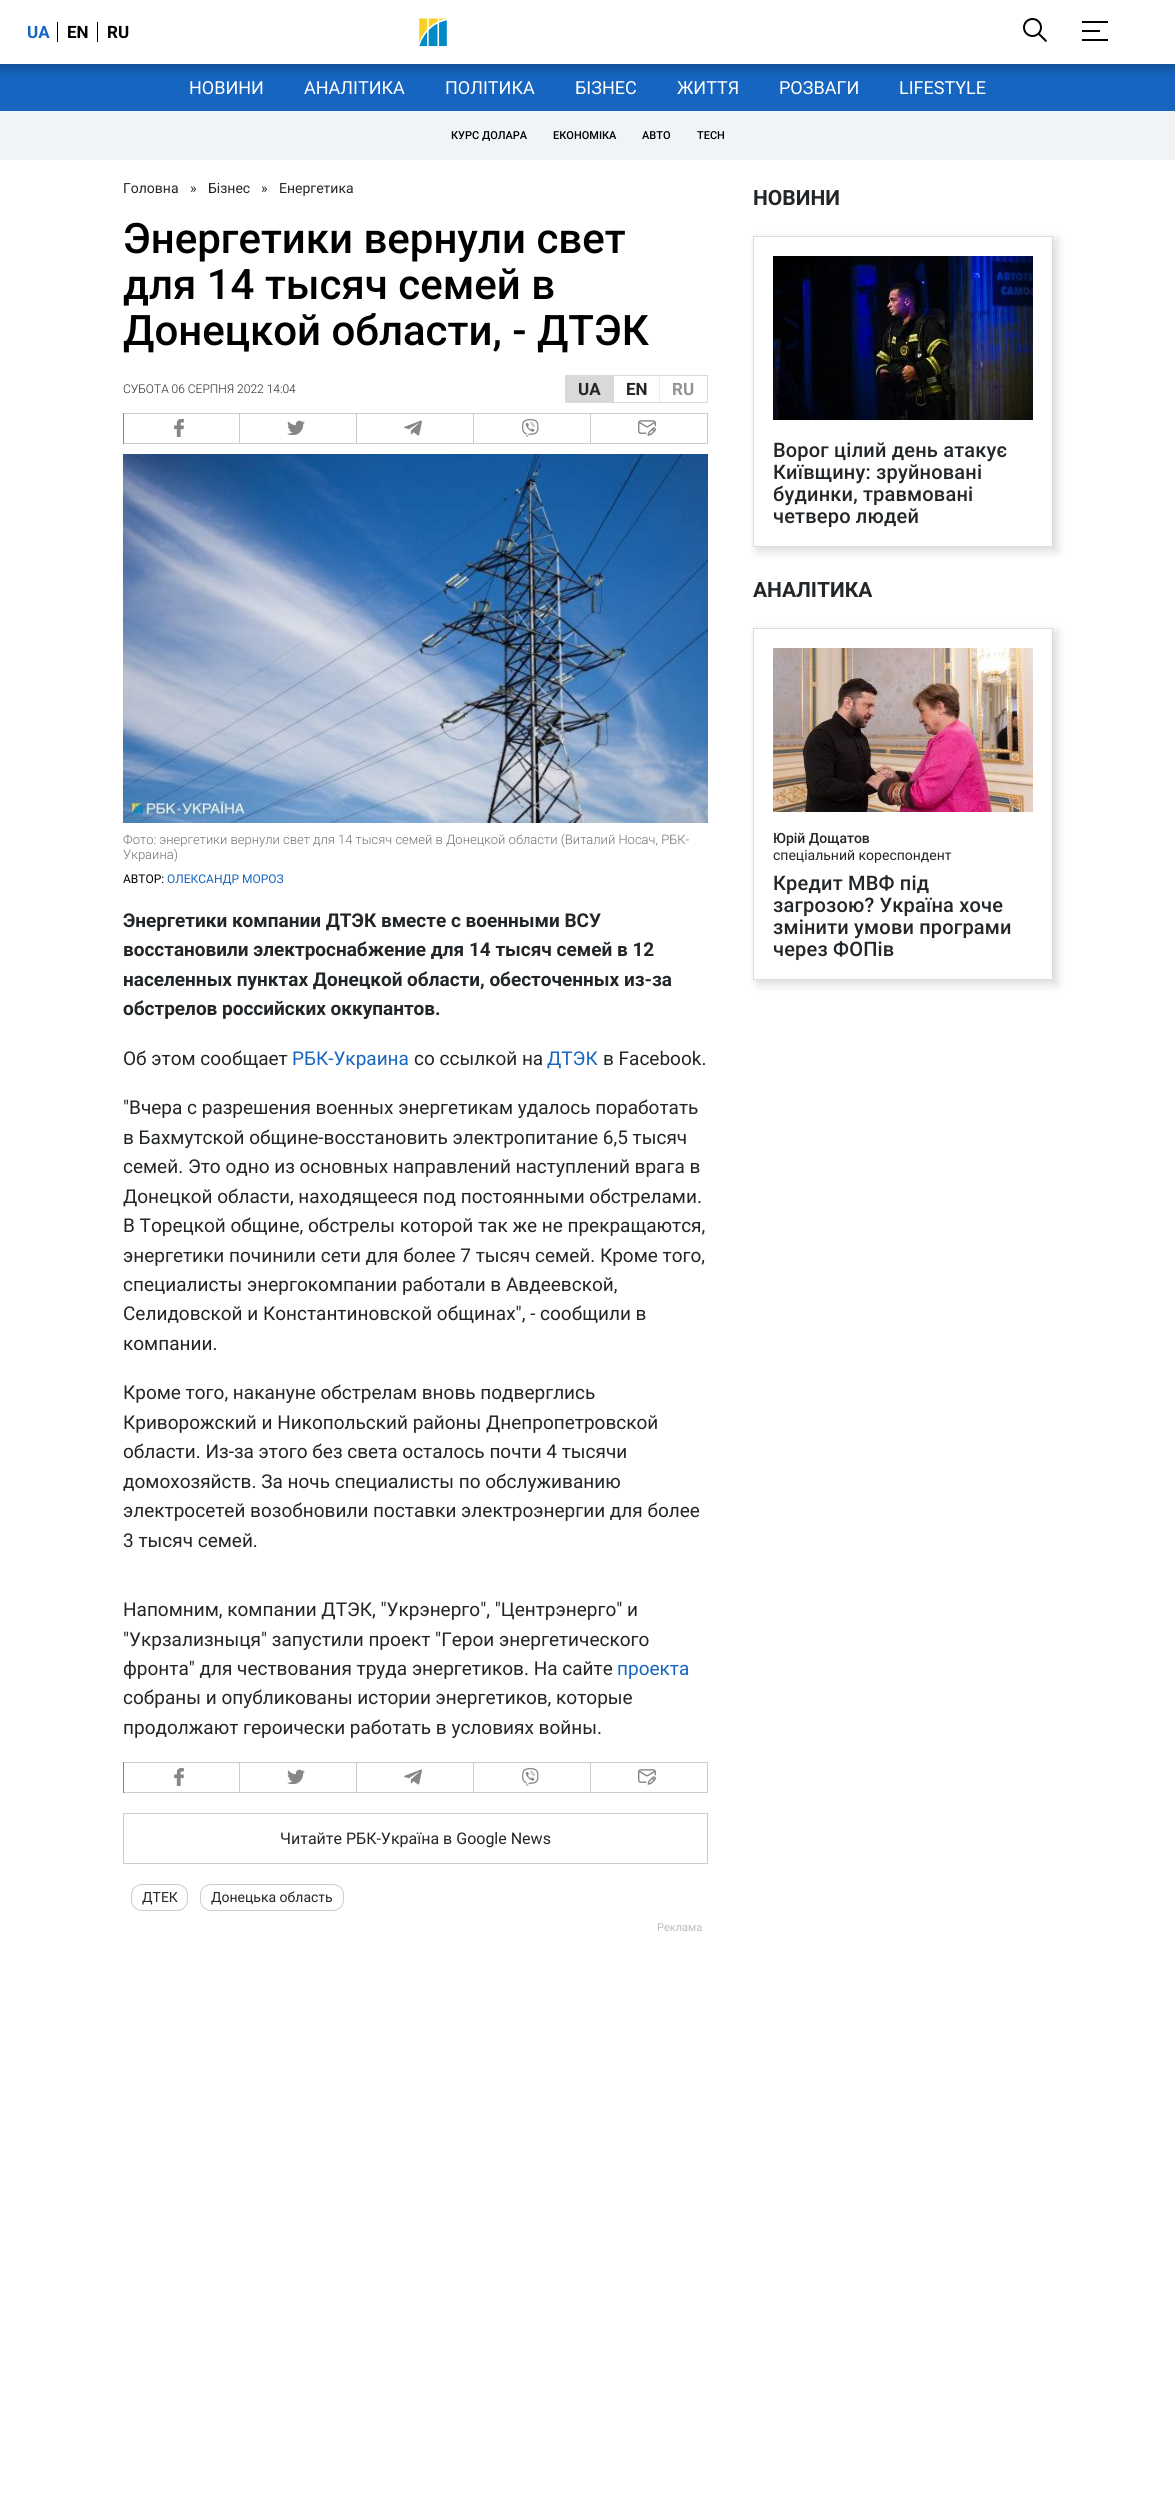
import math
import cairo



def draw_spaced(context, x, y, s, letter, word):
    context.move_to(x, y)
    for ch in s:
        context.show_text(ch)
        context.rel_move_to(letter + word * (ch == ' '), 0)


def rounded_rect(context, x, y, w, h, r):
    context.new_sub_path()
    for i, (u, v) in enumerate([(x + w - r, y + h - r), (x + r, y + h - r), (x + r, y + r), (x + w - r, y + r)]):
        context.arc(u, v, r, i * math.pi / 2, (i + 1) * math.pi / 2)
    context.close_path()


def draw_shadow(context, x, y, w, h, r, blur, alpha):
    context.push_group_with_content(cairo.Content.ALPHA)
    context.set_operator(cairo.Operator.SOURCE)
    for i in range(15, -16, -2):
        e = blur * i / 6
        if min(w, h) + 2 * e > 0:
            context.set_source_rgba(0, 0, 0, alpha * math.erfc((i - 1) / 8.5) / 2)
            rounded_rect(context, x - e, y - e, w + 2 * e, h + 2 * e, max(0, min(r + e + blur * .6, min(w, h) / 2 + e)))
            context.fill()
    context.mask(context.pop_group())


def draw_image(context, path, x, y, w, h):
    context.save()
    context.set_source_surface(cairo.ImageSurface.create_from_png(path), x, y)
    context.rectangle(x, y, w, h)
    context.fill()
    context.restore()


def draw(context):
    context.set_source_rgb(1, 1, 1)
    context.paint()
    context.set_source_rgb(22 / 255, 101 / 255, 193 / 255)
    context.rectangle(0, 64, 1175, 47)
    context.fill()
    context.save()
    context.rectangle(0, 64, 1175, 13)
    context.clip()
    context.set_source_rgb(0, 0, 0)
    draw_shadow(context, 0, 1, 1175, 64, 0, 7.5, 0.38)
    context.restore()
    context.set_source_rgb(0, 0, 0)
    context.rectangle(57, 22, 1, 20)
    context.fill()
    context.rectangle(97, 22, 1, 20)
    context.fill()
    draw_image(context, "images/1.png", 419, 18, 28, 29)
    draw_image(context, "images/2.png", 1023, 18, 24, 24)
    context.rectangle(1082, 21, 26, 2)
    context.fill()
    context.rectangle(1082, 30, 18, 2)
    context.fill()
    context.rectangle(1082, 39, 26, 2)
    context.fill()
    context.set_source_rgb(241 / 255, 244 / 255, 246 / 255)
    context.rectangle(0, 111, 1175, 49)
    context.fill()
    context.rectangle(565.5, 375.5, 142, 27)
    context.set_source_rgb(217 / 255, 217 / 255, 217 / 255)
    context.set_line_width(1)
    context.stroke()
    context.rectangle(566, 376, 48, 26)
    context.fill()
    context.set_source_rgb(236 / 255, 236 / 255, 236 / 255)
    context.rectangle(659, 376, 1, 26)
    context.fill()
    context.set_source_rgb(204 / 255, 204 / 255, 204 / 255)
    context.rectangle(123, 413, 585, 1)
    context.fill()
    context.rectangle(239, 413, 1, 31)
    context.fill()
    context.rectangle(123, 443, 117, 1)
    context.fill()
    context.set_source_rgb(134 / 255, 134 / 255, 134 / 255)
    context.rectangle(123, 413, 1, 31)
    context.fill()
    draw_image(context, "images/3.png", 174, 419, 10, 18)
    context.set_source_rgb(204 / 255, 204 / 255, 204 / 255)
    context.rectangle(356, 413, 1, 31)
    context.fill()
    context.rectangle(240, 443, 117, 1)
    context.fill()
    draw_image(context, "images/4.png", 287, 420, 18, 15)
    context.rectangle(473, 413, 1, 31)
    context.fill()
    context.rectangle(357, 443, 117, 1)
    context.fill()
    draw_image(context, "images/5.png", 404, 420, 18, 16)
    context.rectangle(590, 413, 1, 31)
    context.fill()
    context.rectangle(474, 443, 117, 1)
    context.fill()
    draw_image(context, "images/6.png", 522, 419, 17, 18)
    context.rectangle(707, 413, 1, 31)
    context.fill()
    context.rectangle(591, 443, 117, 1)
    context.fill()
    draw_image(context, "images/7.png", 638, 420, 18, 16)
    draw_image(context, "images/8.png", 123, 454, 585, 369)
    context.rectangle(123, 1762, 585, 1)
    context.fill()
    context.rectangle(239, 1762, 1, 31)
    context.fill()
    context.rectangle(123, 1792, 117, 1)
    context.fill()
    context.set_source_rgb(134 / 255, 134 / 255, 134 / 255)
    context.rectangle(123, 1762, 1, 31)
    context.fill()
    draw_image(context, "images/3.png", 174, 1768, 10, 18)
    context.set_source_rgb(204 / 255, 204 / 255, 204 / 255)
    context.rectangle(356, 1762, 1, 31)
    context.fill()
    context.rectangle(240, 1792, 117, 1)
    context.fill()
    draw_image(context, "images/4.png", 287, 1769, 18, 15)
    context.rectangle(473, 1762, 1, 31)
    context.fill()
    context.rectangle(357, 1792, 117, 1)
    context.fill()
    draw_image(context, "images/5.png", 404, 1769, 18, 16)
    context.rectangle(590, 1762, 1, 31)
    context.fill()
    context.rectangle(474, 1792, 117, 1)
    context.fill()
    draw_image(context, "images/6.png", 522, 1768, 17, 18)
    context.rectangle(707, 1762, 1, 31)
    context.fill()
    context.rectangle(591, 1792, 117, 1)
    context.fill()
    draw_image(context, "images/7.png", 638, 1769, 18, 16)
    context.rectangle(123.5, 1813.5, 584, 50)
    context.stroke()
    rounded_rect(context, 131.5, 1884.5, 56, 26, 10.5)
    context.stroke()
    rounded_rect(context, 200.5, 1884.5, 143, 26, 10.5)
    context.stroke()
    context.save()
    context.set_fill_rule(cairo.FillRule.EVEN_ODD)
    context.new_path()
    context.move_to(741, 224)
    context.line_to(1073, 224)
    context.line_to(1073, 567)
    context.line_to(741, 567)
    context.close_path()
    context.move_to(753, 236)
    context.line_to(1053, 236)
    context.line_to(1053, 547)
    context.line_to(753, 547)
    context.close_path()
    context.clip()
    context.set_source_rgb(0, 0, 0)
    draw_shadow(context, 757, 240, 300, 311, 0, 5, 0.15)
    context.restore()
    context.rectangle(753.5, 236.5, 299, 310)
    context.set_source_rgb(219 / 255, 219 / 255, 219 / 255)
    context.stroke()
    draw_image(context, "images/9.png", 773, 256, 260, 164)
    context.save()
    context.set_fill_rule(cairo.FillRule.EVEN_ODD)
    context.new_path()
    context.move_to(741, 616)
    context.line_to(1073, 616)
    context.line_to(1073, 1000)
    context.line_to(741, 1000)
    context.close_path()
    context.move_to(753, 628)
    context.line_to(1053, 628)
    context.line_to(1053, 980)
    context.line_to(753, 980)
    context.close_path()
    context.clip()
    context.set_source_rgb(0, 0, 0)
    draw_shadow(context, 757, 632, 300, 352, 0, 5, 0.15)
    context.restore()
    context.rectangle(753.5, 628.5, 299, 351)
    context.stroke()
    draw_image(context, "images/10.png", 773, 648, 260, 164)
    context.select_font_face("Roboto", cairo.FontSlant.NORMAL, cairo.FontWeight.BOLD)
    context.set_font_size(17)
    context.set_source_rgb(22 / 255, 101 / 255, 193 / 255)
    context.move_to(27, 38)
    context.show_text("UA")
    context.set_source_rgb(0, 0, 0)
    context.move_to(67, 38)
    context.show_text("EN")
    context.move_to(107, 38)
    context.show_text("RU")
    context.select_font_face("Roboto")
    context.set_font_size(18)
    context.set_source_rgb(1, 1, 1)
    context.move_to(189, 94)
    context.show_text("НОВИНИ")
    context.move_to(304, 94)
    context.show_text("АНАЛІТИКА")
    context.move_to(445, 94)
    context.show_text("ПОЛІТИКА")
    context.move_to(575, 94)
    context.show_text("БІЗНЕС")
    context.move_to(677, 94)
    context.show_text("ЖИТТЯ")
    context.move_to(779, 94)
    context.show_text("РОЗВАГИ")
    context.move_to(899, 94)
    context.show_text("LIFESTYLE")
    context.select_font_face("Roboto Medium")
    context.set_font_size(11)
    context.set_source_rgb(0, 0, 0)
    context.move_to(451, 139)
    context.show_text("КУРС ДОЛАРА")
    context.move_to(553, 139)
    context.show_text("ЕКОНОМІКА")
    context.move_to(642, 139)
    context.show_text("АВТО")
    context.move_to(697, 139)
    context.show_text("TECH")
    context.select_font_face("Roboto")
    context.set_font_size(14)
    context.set_source_rgb(34 / 255, 38 / 255, 41 / 255)
    context.move_to(123, 193)
    context.show_text("Головна")
    context.move_to(190, 193)
    context.show_text("»")
    context.move_to(208, 193)
    context.show_text("Бізнес")
    context.move_to(261, 193)
    context.show_text("»")
    context.move_to(279, 193)
    context.show_text("Енергетика")
    context.select_font_face("Roboto Medium")
    context.set_font_size(42)
    context.set_source_rgb(0, 0, 0)
    context.move_to(123, 253)
    context.show_text("Энергетики вернули свет")
    context.move_to(123, 299)
    context.show_text("для 14 тысяч семей в")
    context.move_to(123, 345)
    context.show_text("Донецкой области, - ДТЭК")
    context.select_font_face("Roboto Light")
    context.set_font_size(12)
    context.set_source_rgb(34 / 255, 38 / 255, 41 / 255)
    context.move_to(123, 393)
    context.show_text("СУБОТА 06 СЕРПНЯ 2022 14:04")
    context.select_font_face("Roboto", cairo.FontSlant.NORMAL, cairo.FontWeight.BOLD)
    context.set_font_size(17)
    context.move_to(578, 395)
    context.show_text("UA")
    context.move_to(626, 395)
    context.show_text("EN")
    context.set_source_rgb(145 / 255, 147 / 255, 148 / 255)
    context.move_to(672, 395)
    context.show_text("RU")
    context.select_font_face("Roboto Light")
    context.set_font_size(13)
    context.set_source_rgb(113 / 255, 113 / 255, 113 / 255)
    context.move_to(123, 844)
    context.show_text("Фото: энергетики вернули свет для 14 тысяч семей в Донецкой области (Виталий Носач, РБК-")
    context.move_to(123, 859)
    context.show_text("Украина)")
    context.select_font_face("Roboto")
    context.set_font_size(12)
    context.set_source_rgb(0, 0, 0)
    context.move_to(123, 883)
    context.show_text("АВТОР:")
    context.set_source_rgb(22 / 255, 101 / 255, 193 / 255)
    context.move_to(167, 883)
    context.show_text("ОЛЕКСАНДР МОРОЗ")
    context.select_font_face("Roboto", cairo.FontSlant.NORMAL, cairo.FontWeight.BOLD)
    context.set_font_size(19)
    context.set_source_rgb(34 / 255, 38 / 255, 41 / 255)
    context.move_to(123, 927)
    context.show_text("Энергетики компании ДТЭК вместе с военными ВСУ")
    context.move_to(123, 956)
    context.show_text("восстановили электроснабжение для 14 тысяч семей в 12")
    context.move_to(123, 986)
    context.show_text("населенных пунктах Донецкой области, обесточенных из-за")
    context.move_to(123, 1015)
    context.show_text("обстрелов российских оккупантов.")
    context.select_font_face("Roboto")
    context.move_to(123, 1065)
    context.show_text("Об этом сообщает")
    context.set_source_rgb(22 / 255, 101 / 255, 193 / 255)
    context.move_to(292, 1065)
    context.show_text("РБК-Украина")
    context.set_source_rgb(34 / 255, 38 / 255, 41 / 255)
    context.move_to(414, 1065)
    context.show_text("со ссылкой на")
    context.set_source_rgb(22 / 255, 101 / 255, 193 / 255)
    context.move_to(547, 1065)
    context.show_text("ДТЭК")
    context.set_source_rgb(34 / 255, 38 / 255, 41 / 255)
    context.move_to(603, 1065)
    context.show_text("в Facebook.")
    context.move_to(123, 1114)
    context.show_text("\"Вчера с разрешения военных энергетикам удалось поработать")
    context.move_to(123, 1144)
    context.show_text("в Бахмутской общине-восстановить электропитание 6,5 тысяч")
    context.move_to(123, 1173)
    context.show_text("семей. Это одно из основных направлений наступлений врага в")
    context.move_to(123, 1203)
    context.show_text("Донецкой области, находящееся под постоянными обстрелами.")
    context.move_to(123, 1232)
    context.show_text("В Торецкой общине, обстрелы которой так же не прекращаются,")
    context.move_to(123, 1262)
    context.show_text("энергетики починили сети для более 7 тысяч семей. Кроме того,")
    context.move_to(123, 1291)
    context.show_text("специалисты энергокомпании работали в Авдеевской,")
    context.move_to(123, 1320)
    context.show_text("Селидовской и Константиновской общинах\", - сообщили в")
    context.move_to(123, 1350)
    context.show_text("компании.")
    context.move_to(123, 1399)
    context.show_text("Кроме того, накануне обстрелам вновь подверглись")
    context.move_to(123, 1429)
    context.show_text("Криворожский и Никопольский районы Днепропетровской")
    context.move_to(123, 1458)
    context.show_text("области. Из-за этого без света осталось почти 4 тысячи")
    context.move_to(123, 1488)
    context.show_text("домохозяйств. За ночь специалисты по обслуживанию")
    context.move_to(123, 1517)
    context.show_text("электросетей возобновили поставки электроэнергии для более")
    context.move_to(123, 1547)
    context.show_text("3 тысяч семей.")
    context.move_to(123, 1616)
    context.show_text("Напомним, компании ДТЭК, \"Укрэнерго\", \"Центрэнерго\" и")
    context.move_to(123, 1646)
    context.show_text("\"Укрзализныця\" запустили проект \"Герои энергетического")
    context.move_to(123, 1675)
    context.show_text("фронта\" для чествования труда энергетиков. На сайте")
    context.set_source_rgb(22 / 255, 101 / 255, 193 / 255)
    context.move_to(617, 1675)
    context.show_text("проекта")
    context.set_source_rgb(34 / 255, 38 / 255, 41 / 255)
    context.move_to(123, 1704)
    context.show_text("собраны и опубликованы истории энергетиков, которые")
    context.move_to(123, 1734)
    context.show_text("продолжают героически работать в условиях войны.")
    context.set_font_size(16)
    context.move_to(280, 1844)
    context.show_text("Читайте РБК-Україна в Google News")
    context.set_font_size(14)
    context.move_to(142, 1902)
    context.show_text("ДТЕК")
    context.move_to(211, 1902)
    context.show_text("Донецька область")
    context.set_font_size(11)
    context.set_source_rgb(188 / 255, 187 / 255, 191 / 255)
    context.move_to(657, 1931)
    context.show_text("Реклама")
    context.select_font_face("Roboto", cairo.FontSlant.NORMAL, cairo.FontWeight.BOLD)
    context.set_font_size(21)
    context.set_source_rgb(34 / 255, 38 / 255, 41 / 255)
    context.move_to(753, 205)
    context.show_text("НОВИНИ")
    context.select_font_face("Roboto Medium")
    context.set_font_size(20)
    draw_spaced(context, 773, 457, "Ворог цілий день атакує", 0.2, 0)
    draw_spaced(context, 773, 479, "Київщину: зруйновані", 0.2, 0)
    draw_spaced(context, 773, 501, "будинки, травмовані", 0.2, 0)
    draw_spaced(context, 773, 523, "четверо людей", 0.2, 0)
    context.select_font_face("Roboto", cairo.FontSlant.NORMAL, cairo.FontWeight.BOLD)
    context.set_font_size(21)
    context.move_to(753, 597)
    context.show_text("АНАЛІТИКА")
    context.select_font_face("Roboto Medium")
    context.set_font_size(14)
    context.move_to(773, 843)
    context.show_text("Юрій Дощатов")
    context.select_font_face("Roboto")
    context.move_to(773, 860)
    context.show_text("спеціальний кореспондент")
    context.select_font_face("Roboto Medium")
    context.set_font_size(20)
    draw_spaced(context, 773, 890, "Кредит МВФ під", 0.2, 0)
    draw_spaced(context, 773, 912, "загрозою? Україна хоче", 0.2, 0)
    draw_spaced(context, 773, 934, "змінити умови програми", 0.2, 0)
    draw_spaced(context, 773, 956, "через ФОПів", 0.2, 0)


surface = cairo.ImageSurface(cairo.Format.RGB24, 1175, 2518)
context = cairo.Context(surface)
options = cairo.FontOptions()
options.set_hint_metrics(cairo.HintMetrics.OFF)
options.set_hint_style(cairo.HintStyle.NONE)
context.set_font_options(options)
context.set_miter_limit(4)
draw(context)
surface.write_to_png("out.png")
